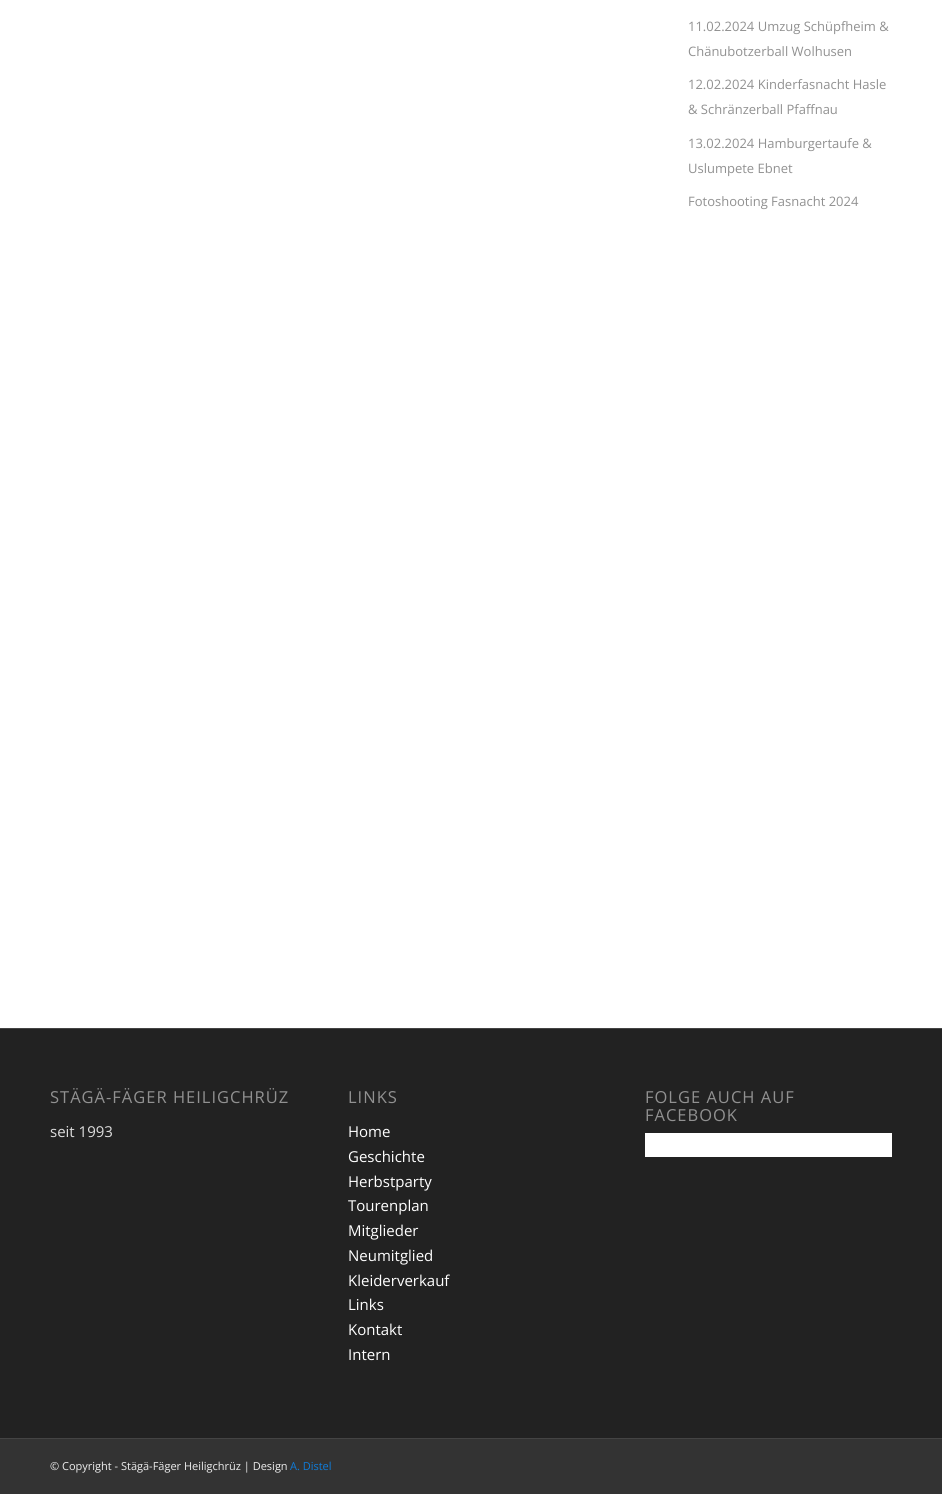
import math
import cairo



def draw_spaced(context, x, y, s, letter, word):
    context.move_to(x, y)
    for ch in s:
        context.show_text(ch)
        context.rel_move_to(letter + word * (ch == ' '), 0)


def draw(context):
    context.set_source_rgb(1, 1, 1)
    context.paint()
    context.set_source_rgb(34 / 255, 34 / 255, 34 / 255)
    context.rectangle(0, 1029, 942, 409)
    context.fill()
    context.set_source_rgb(68 / 255, 68 / 255, 68 / 255)
    context.rectangle(0, 1028, 942, 1)
    context.fill()
    context.set_source_rgb(1, 1, 1)
    context.rectangle(645, 1133, 247, 24)
    context.fill()
    context.set_source_rgb(51 / 255, 51 / 255, 51 / 255)
    context.rectangle(0, 1439, 942, 55)
    context.fill()
    context.set_source_rgb(68 / 255, 68 / 255, 68 / 255)
    context.rectangle(0, 1438, 942, 1)
    context.fill()
    context.select_font_face("Open Sans")
    context.set_font_size(13)
    context.set_source_rgb(145 / 255, 145 / 255, 145 / 255)
    context.move_to(688, 31)
    context.show_text("11.02.2024 Umzug Schüpfheim &")
    context.move_to(688, 56)
    context.show_text("Chänubotzerball Wolhusen")
    context.move_to(688, 89)
    context.show_text("12.02.2024 Kinderfasnacht Hasle")
    context.move_to(688, 114)
    context.show_text("& Schränzerball Pfaffnau")
    context.move_to(688, 148)
    context.show_text("13.02.2024 Hamburgertaufe &")
    context.move_to(688, 173)
    context.show_text("Uslumpete Ebnet")
    context.move_to(688, 206)
    context.show_text("Fotoshooting Fasnacht 2024")
    context.set_font_size(16.5)
    draw_spaced(context, 50, 1103, "STÄGÄ-FÄGER HEILIGCHRÜZ", 1, 0)
    context.set_font_size(15)
    context.set_source_rgb(221 / 255, 221 / 255, 221 / 255)
    context.move_to(50, 1137)
    context.show_text("seit 1993")
    context.set_font_size(16.5)
    context.set_source_rgb(145 / 255, 145 / 255, 145 / 255)
    draw_spaced(context, 348, 1103, "LINKS", 1, 0)
    context.set_font_size(15)
    context.set_source_rgb(1, 1, 1)
    context.move_to(348, 1137)
    context.show_text("Home")
    context.move_to(348, 1162)
    context.show_text("Geschichte")
    context.move_to(348, 1187)
    context.show_text("Herbstparty")
    context.move_to(348, 1211)
    context.show_text("Tourenplan")
    context.move_to(348, 1236)
    context.show_text("Mitglieder")
    context.move_to(348, 1261)
    context.show_text("Neumitglied")
    context.move_to(348, 1286)
    context.show_text("Kleiderverkauf")
    context.move_to(348, 1310)
    context.show_text("Links")
    context.move_to(348, 1335)
    context.show_text("Kontakt")
    context.move_to(348, 1360)
    context.show_text("Intern")
    context.set_font_size(16.5)
    context.set_source_rgb(145 / 255, 145 / 255, 145 / 255)
    draw_spaced(context, 645, 1103, "FOLGE AUCH AUF", 1, 0)
    draw_spaced(context, 645, 1121, "FACEBOOK", 1, 0)
    context.set_font_size(11)
    context.set_source_rgb(238 / 255, 238 / 255, 238 / 255)
    context.move_to(50, 1470)
    context.show_text("© Copyright - Stägä-Fäger Heiligchrüz | Design")
    context.set_source_rgb(15 / 255, 124 / 255, 217 / 255)
    context.move_to(290, 1470)
    context.show_text("A. Distel")


surface = cairo.ImageSurface(cairo.Format.RGB24, 942, 1494)
context = cairo.Context(surface)
options = cairo.FontOptions()
options.set_hint_metrics(cairo.HintMetrics.OFF)
options.set_hint_style(cairo.HintStyle.NONE)
context.set_font_options(options)
context.set_miter_limit(4)
draw(context)
surface.write_to_png("out.png")
